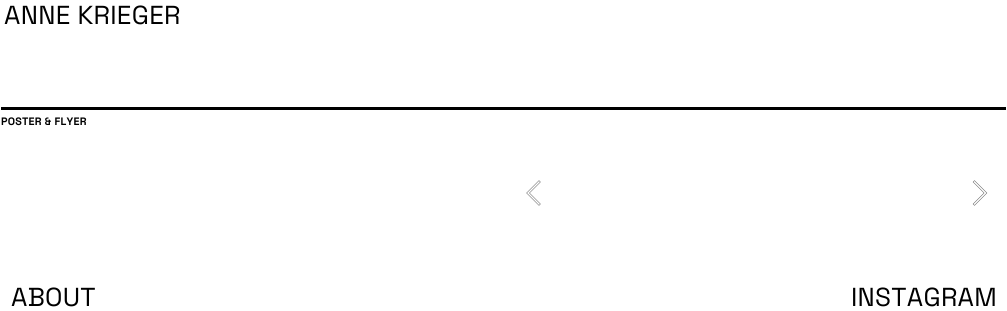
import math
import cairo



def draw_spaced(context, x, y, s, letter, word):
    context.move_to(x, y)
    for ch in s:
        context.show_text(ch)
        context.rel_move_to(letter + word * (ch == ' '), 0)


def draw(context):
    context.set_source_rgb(1, 1, 1)
    context.paint()
    context.set_source_rgb(0, 0, 0)
    context.rectangle(1, 107, 1005, 3)
    context.fill()
    context.new_path()
    context.move_to(539, 204)
    context.line_to(528, 193)
    context.line_to(539, 182)
    context.set_source_rgb(102 / 255, 102 / 255, 102 / 255)
    context.set_line_width(2.5)
    context.set_line_cap(cairo.LineCap.SQUARE)
    context.stroke()
    context.new_path()
    context.move_to(539, 204)
    context.line_to(528, 193)
    context.line_to(539, 182)
    context.set_source_rgb(1, 1, 1)
    context.set_line_width(1.5)
    context.stroke()
    context.new_path()
    context.move_to(974.5, 204)
    context.line_to(985.5, 193)
    context.line_to(974.5, 182)
    context.set_source_rgb(102 / 255, 102 / 255, 102 / 255)
    context.set_line_width(2.5)
    context.stroke()
    context.new_path()
    context.move_to(974.5, 204)
    context.line_to(985.5, 193)
    context.line_to(974.5, 182)
    context.set_source_rgb(1, 1, 1)
    context.set_line_width(1.5)
    context.stroke()
    context.select_font_face("Space Grotesk")
    context.set_font_size(26)
    context.set_source_rgb(0, 0, 0)
    draw_spaced(context, 4, 24, "ANNE KRIEGER", 0.25, 0)
    context.select_font_face("Space Grotesk", cairo.FontSlant.NORMAL, cairo.FontWeight.BOLD)
    context.set_font_size(10.75)
    draw_spaced(context, 1, 125, "POSTER & FLYER", 0.25, 0)
    context.select_font_face("Space Grotesk")
    context.set_font_size(26)
    draw_spaced(context, 11, 306, "ABOUT", 0.25, 0)
    draw_spaced(context, 851, 306, "INSTAGRAM", 0.25, 0)


surface = cairo.ImageSurface(cairo.Format.RGB24, 1007, 311)
context = cairo.Context(surface)
options = cairo.FontOptions()
options.set_hint_metrics(cairo.HintMetrics.OFF)
options.set_hint_style(cairo.HintStyle.NONE)
context.set_font_options(options)
context.set_miter_limit(4)
draw(context)
surface.write_to_png("out.png")
